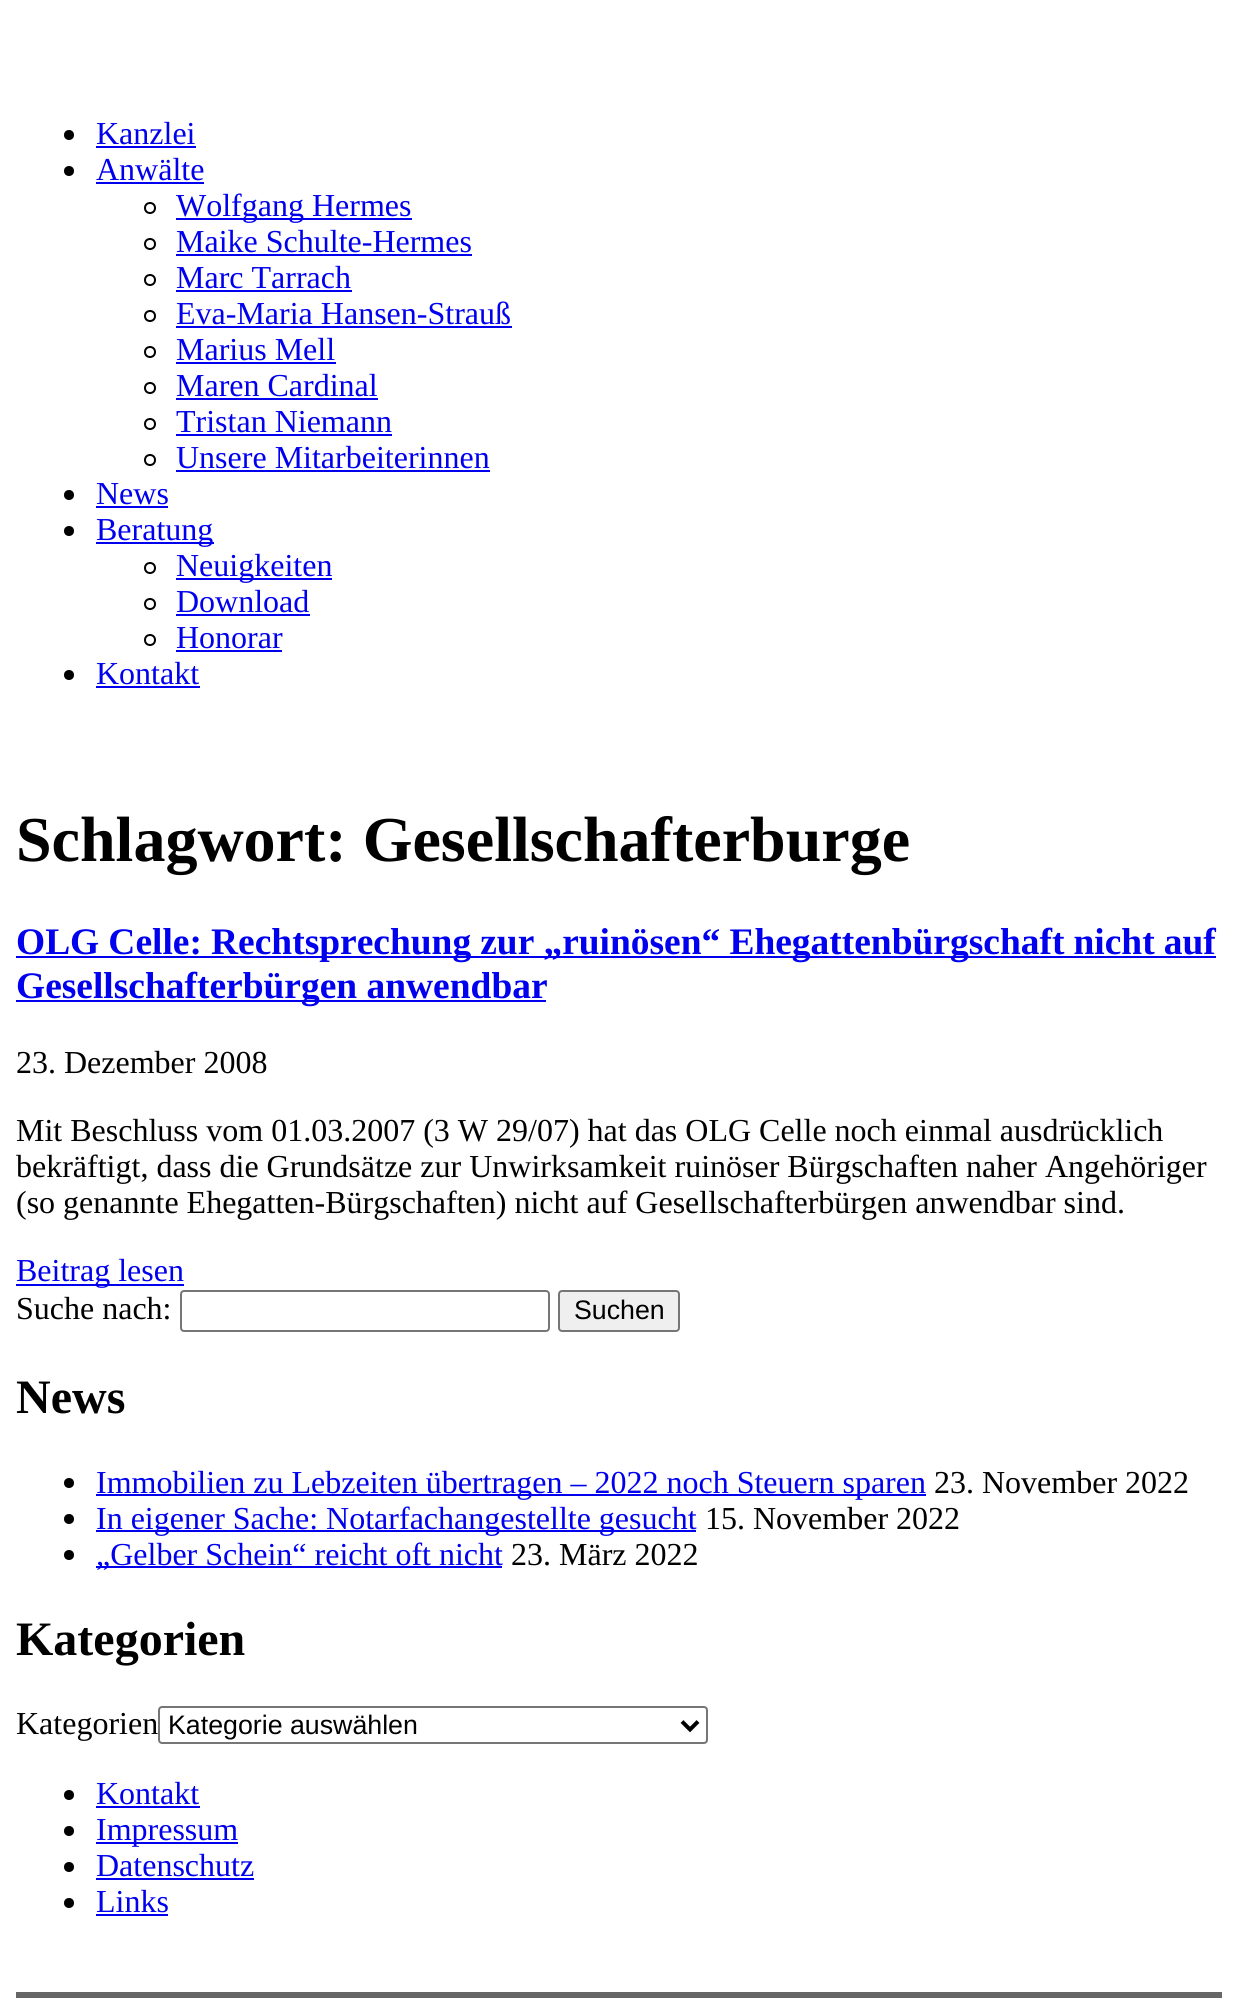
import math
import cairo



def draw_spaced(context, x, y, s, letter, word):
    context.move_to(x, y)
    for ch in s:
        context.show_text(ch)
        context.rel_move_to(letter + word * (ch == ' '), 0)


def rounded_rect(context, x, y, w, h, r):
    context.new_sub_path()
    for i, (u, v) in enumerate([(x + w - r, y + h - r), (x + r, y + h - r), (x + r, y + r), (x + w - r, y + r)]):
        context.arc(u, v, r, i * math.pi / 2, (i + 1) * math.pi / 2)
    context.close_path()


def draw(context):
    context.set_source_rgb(1, 1, 1)
    context.paint()
    context.set_source_rgb(0, 0, 0)
    context.arc(69, 135, 5, 0, 2 * math.pi)
    context.fill()
    context.set_source_rgb(0, 0, 238 / 255)
    context.rectangle(96, 146, 100, 2)
    context.fill()
    context.set_source_rgb(0, 0, 0)
    context.arc(69, 171, 5, 0, 2 * math.pi)
    context.fill()
    context.set_source_rgb(0, 0, 238 / 255)
    context.rectangle(96, 182, 108, 2)
    context.fill()
    context.arc(150, 208, 5, 0, 2 * math.pi)
    context.set_source_rgb(0, 0, 0)
    context.stroke()
    context.set_source_rgb(0, 0, 238 / 255)
    context.rectangle(176, 218, 236, 2)
    context.fill()
    context.arc(150, 244, 5, 0, 2 * math.pi)
    context.set_source_rgb(0, 0, 0)
    context.stroke()
    context.set_source_rgb(0, 0, 238 / 255)
    context.rectangle(176, 254, 296, 2)
    context.fill()
    context.arc(150, 280, 5, 0, 2 * math.pi)
    context.set_source_rgb(0, 0, 0)
    context.stroke()
    context.set_source_rgb(0, 0, 238 / 255)
    context.rectangle(176, 290, 176, 2)
    context.fill()
    context.arc(150, 316, 5, 0, 2 * math.pi)
    context.set_source_rgb(0, 0, 0)
    context.stroke()
    context.set_source_rgb(0, 0, 238 / 255)
    context.rectangle(176, 326, 336, 2)
    context.fill()
    context.arc(150, 352, 5, 0, 2 * math.pi)
    context.set_source_rgb(0, 0, 0)
    context.stroke()
    context.set_source_rgb(0, 0, 238 / 255)
    context.rectangle(176, 362, 160, 2)
    context.fill()
    context.arc(150, 388, 5, 0, 2 * math.pi)
    context.set_source_rgb(0, 0, 0)
    context.stroke()
    context.set_source_rgb(0, 0, 238 / 255)
    context.rectangle(176, 398, 202, 2)
    context.fill()
    context.arc(150, 424, 5, 0, 2 * math.pi)
    context.set_source_rgb(0, 0, 0)
    context.stroke()
    context.set_source_rgb(0, 0, 238 / 255)
    context.rectangle(176, 434, 216, 2)
    context.fill()
    context.arc(150, 460, 5, 0, 2 * math.pi)
    context.set_source_rgb(0, 0, 0)
    context.stroke()
    context.set_source_rgb(0, 0, 238 / 255)
    context.rectangle(176, 470, 314, 2)
    context.fill()
    context.set_source_rgb(0, 0, 0)
    context.arc(69, 495, 5, 0, 2 * math.pi)
    context.fill()
    context.set_source_rgb(0, 0, 238 / 255)
    context.rectangle(96, 506, 72, 2)
    context.fill()
    context.set_source_rgb(0, 0, 0)
    context.arc(69, 531, 5, 0, 2 * math.pi)
    context.fill()
    context.set_source_rgb(0, 0, 238 / 255)
    context.rectangle(96, 542, 118, 2)
    context.fill()
    context.arc(150, 568, 5, 0, 2 * math.pi)
    context.set_source_rgb(0, 0, 0)
    context.stroke()
    context.set_source_rgb(0, 0, 238 / 255)
    context.rectangle(176, 578, 156, 2)
    context.fill()
    context.arc(150, 604, 5, 0, 2 * math.pi)
    context.set_source_rgb(0, 0, 0)
    context.stroke()
    context.set_source_rgb(0, 0, 238 / 255)
    context.rectangle(176, 614, 134, 2)
    context.fill()
    context.arc(150, 640, 5, 0, 2 * math.pi)
    context.set_source_rgb(0, 0, 0)
    context.stroke()
    context.set_source_rgb(0, 0, 238 / 255)
    context.rectangle(176, 650, 106, 2)
    context.fill()
    context.set_source_rgb(0, 0, 0)
    context.arc(69, 675, 5, 0, 2 * math.pi)
    context.fill()
    context.set_source_rgb(0, 0, 238 / 255)
    context.rectangle(96, 686, 104, 2)
    context.fill()
    context.rectangle(16, 956, 1200, 2)
    context.fill()
    context.rectangle(16, 1000, 530, 2)
    context.fill()
    context.rectangle(16, 1284, 168, 2)
    context.fill()
    rounded_rect(context, 181, 1291, 368, 40, 3)
    context.set_source_rgb(118 / 255, 118 / 255, 118 / 255)
    context.stroke()
    context.set_source_rgb(239 / 255, 239 / 255, 239 / 255)
    rounded_rect(context, 559, 1291, 120, 40, 3)
    context.fill_preserve()
    context.set_source_rgb(118 / 255, 118 / 255, 118 / 255)
    context.stroke()
    context.set_source_rgb(0, 0, 0)
    context.arc(69, 1483, 5, 0, 2 * math.pi)
    context.fill()
    context.set_source_rgb(0, 0, 238 / 255)
    context.rectangle(96, 1494, 830, 2)
    context.fill()
    context.set_source_rgb(0, 0, 0)
    context.arc(69, 1519, 5, 0, 2 * math.pi)
    context.fill()
    context.set_source_rgb(0, 0, 238 / 255)
    context.rectangle(96, 1530, 600, 2)
    context.fill()
    context.set_source_rgb(0, 0, 0)
    context.arc(69, 1555, 5, 0, 2 * math.pi)
    context.fill()
    context.set_source_rgb(0, 0, 238 / 255)
    context.rectangle(96, 1566, 406, 2)
    context.fill()
    rounded_rect(context, 159, 1707, 548, 36, 3)
    context.set_source_rgb(118 / 255, 118 / 255, 118 / 255)
    context.stroke()
    context.new_path()
    context.move_to(682, 1721.5)
    context.line_to(690, 1729.5)
    context.line_to(698, 1721.5)
    context.set_source_rgb(0, 0, 0)
    context.set_line_width(4)
    context.stroke()
    context.arc(69, 1795, 5, 0, 2 * math.pi)
    context.fill()
    context.set_source_rgb(0, 0, 238 / 255)
    context.rectangle(96, 1806, 104, 2)
    context.fill()
    context.set_source_rgb(0, 0, 0)
    context.arc(69, 1831, 5, 0, 2 * math.pi)
    context.fill()
    context.set_source_rgb(0, 0, 238 / 255)
    context.rectangle(96, 1842, 142, 2)
    context.fill()
    context.set_source_rgb(0, 0, 0)
    context.arc(69, 1867, 5, 0, 2 * math.pi)
    context.fill()
    context.set_source_rgb(0, 0, 238 / 255)
    context.rectangle(96, 1878, 158, 2)
    context.fill()
    context.set_source_rgb(0, 0, 0)
    context.arc(69, 1903, 5, 0, 2 * math.pi)
    context.fill()
    context.set_source_rgb(0, 0, 238 / 255)
    context.rectangle(96, 1914, 72, 2)
    context.fill()
    context.set_source_rgb(102 / 255, 102 / 255, 102 / 255)
    context.rectangle(16, 1992, 1206, 6)
    context.fill()
    context.select_font_face("Liberation Serif")
    context.set_font_size(32)
    context.set_source_rgb(0, 0, 238 / 255)
    context.move_to(96, 144)
    context.show_text("Kanzlei")
    context.move_to(96, 180)
    context.show_text("Anwälte")
    context.move_to(176, 216)
    context.show_text("Wolfgang Hermes")
    context.move_to(176, 252)
    context.show_text("Maike Schulte-Hermes")
    context.move_to(176, 288)
    context.show_text("Marc Tarrach")
    context.move_to(176, 324)
    context.show_text("Eva-Maria Hansen-Strauß")
    context.move_to(176, 360)
    context.show_text("Marius Mell")
    context.move_to(176, 396)
    context.show_text("Maren Cardinal")
    context.move_to(176, 432)
    context.show_text("Tristan Niemann")
    context.move_to(176, 468)
    context.show_text("Unsere Mitarbeiterinnen")
    context.move_to(96, 504)
    context.show_text("News")
    context.move_to(96, 540)
    context.show_text("Beratung")
    context.move_to(176, 576)
    context.show_text("Neuigkeiten")
    context.move_to(176, 612)
    context.show_text("Download")
    context.move_to(176, 648)
    context.show_text("Honorar")
    context.move_to(96, 684)
    context.show_text("Kontakt")
    context.select_font_face("Liberation Serif", cairo.FontSlant.NORMAL, cairo.FontWeight.BOLD)
    context.set_font_size(64)
    context.set_source_rgb(0, 0, 0)
    context.move_to(16, 861)
    context.show_text("Schlagwort: Gesellschafterburge")
    context.set_font_size(37.45)
    context.set_source_rgb(0, 0, 238 / 255)
    draw_spaced(context, 16, 954, "OLG Celle: Rechtsprechung zur „ruinösen“ Ehegattenbürgschaft nicht auf", 0, -0.25)
    context.move_to(16, 998)
    context.show_text("Gesellschafterbürgen anwendbar")
    context.select_font_face("Liberation Serif")
    context.set_font_size(32)
    context.set_source_rgb(0, 0, 0)
    context.move_to(16, 1073)
    context.show_text("23. Dezember 2008")
    context.move_to(16, 1141)
    context.show_text("Mit Beschluss vom 01.03.2007 (3 W 29/07) hat das OLG Celle noch einmal ausdrücklich")
    context.move_to(16, 1177)
    context.show_text("bekräftigt, dass die Grundsätze zur Unwirksamkeit ruinöser Bürgschaften naher Angehöriger")
    context.move_to(16, 1213)
    context.show_text("(so genannte Ehegatten-Bürgschaften) nicht auf Gesellschafterbürgen anwendbar sind.")
    context.set_source_rgb(0, 0, 238 / 255)
    context.move_to(16, 1281)
    context.show_text("Beitrag lesen")
    context.set_source_rgb(0, 0, 0)
    context.move_to(16, 1319)
    context.show_text("Suche nach:")
    context.select_font_face("Liberation Sans")
    context.set_font_size(26.75)
    context.move_to(574, 1319)
    context.show_text("Suchen")
    context.select_font_face("Liberation Serif", cairo.FontSlant.NORMAL, cairo.FontWeight.BOLD)
    context.set_font_size(48)
    context.move_to(16, 1413)
    context.show_text("News")
    context.select_font_face("Liberation Serif")
    context.set_font_size(32)
    context.set_source_rgb(0, 0, 238 / 255)
    context.move_to(96, 1493)
    context.show_text("Immobilien zu Lebzeiten übertragen – 2022 noch Steuern sparen")
    context.set_source_rgb(0, 0, 0)
    context.move_to(934, 1493)
    context.show_text("23. November 2022")
    context.set_source_rgb(0, 0, 238 / 255)
    context.move_to(96, 1529)
    context.show_text("In eigener Sache: Notarfachangestellte gesucht")
    context.set_source_rgb(0, 0, 0)
    context.move_to(705, 1529)
    context.show_text("15. November 2022")
    context.set_source_rgb(0, 0, 238 / 255)
    context.move_to(96, 1565)
    context.show_text("„Gelber Schein“ reicht oft nicht")
    context.set_source_rgb(0, 0, 0)
    context.move_to(511, 1565)
    context.show_text("23. März 2022")
    context.select_font_face("Liberation Serif", cairo.FontSlant.NORMAL, cairo.FontWeight.BOLD)
    context.set_font_size(48)
    context.move_to(16, 1655)
    context.show_text("Kategorien")
    context.select_font_face("Liberation Serif")
    context.set_font_size(32)
    context.move_to(16, 1734)
    context.show_text("Kategorien")
    context.select_font_face("Liberation Sans")
    context.set_font_size(26.75)
    context.move_to(168, 1734)
    context.show_text("Kategorie auswählen")
    context.select_font_face("Liberation Serif")
    context.set_font_size(32)
    context.set_source_rgb(0, 0, 238 / 255)
    context.move_to(96, 1804)
    context.show_text("Kontakt")
    context.move_to(96, 1840)
    context.show_text("Impressum")
    context.move_to(96, 1876)
    context.show_text("Datenschutz")
    context.move_to(96, 1912)
    context.show_text("Links")


surface = cairo.ImageSurface(cairo.Format.RGB24, 1238, 1998)
context = cairo.Context(surface)
options = cairo.FontOptions()
options.set_hint_metrics(cairo.HintMetrics.OFF)
options.set_hint_style(cairo.HintStyle.NONE)
context.set_font_options(options)
context.set_miter_limit(4)
draw(context)
surface.write_to_png("out.png")
